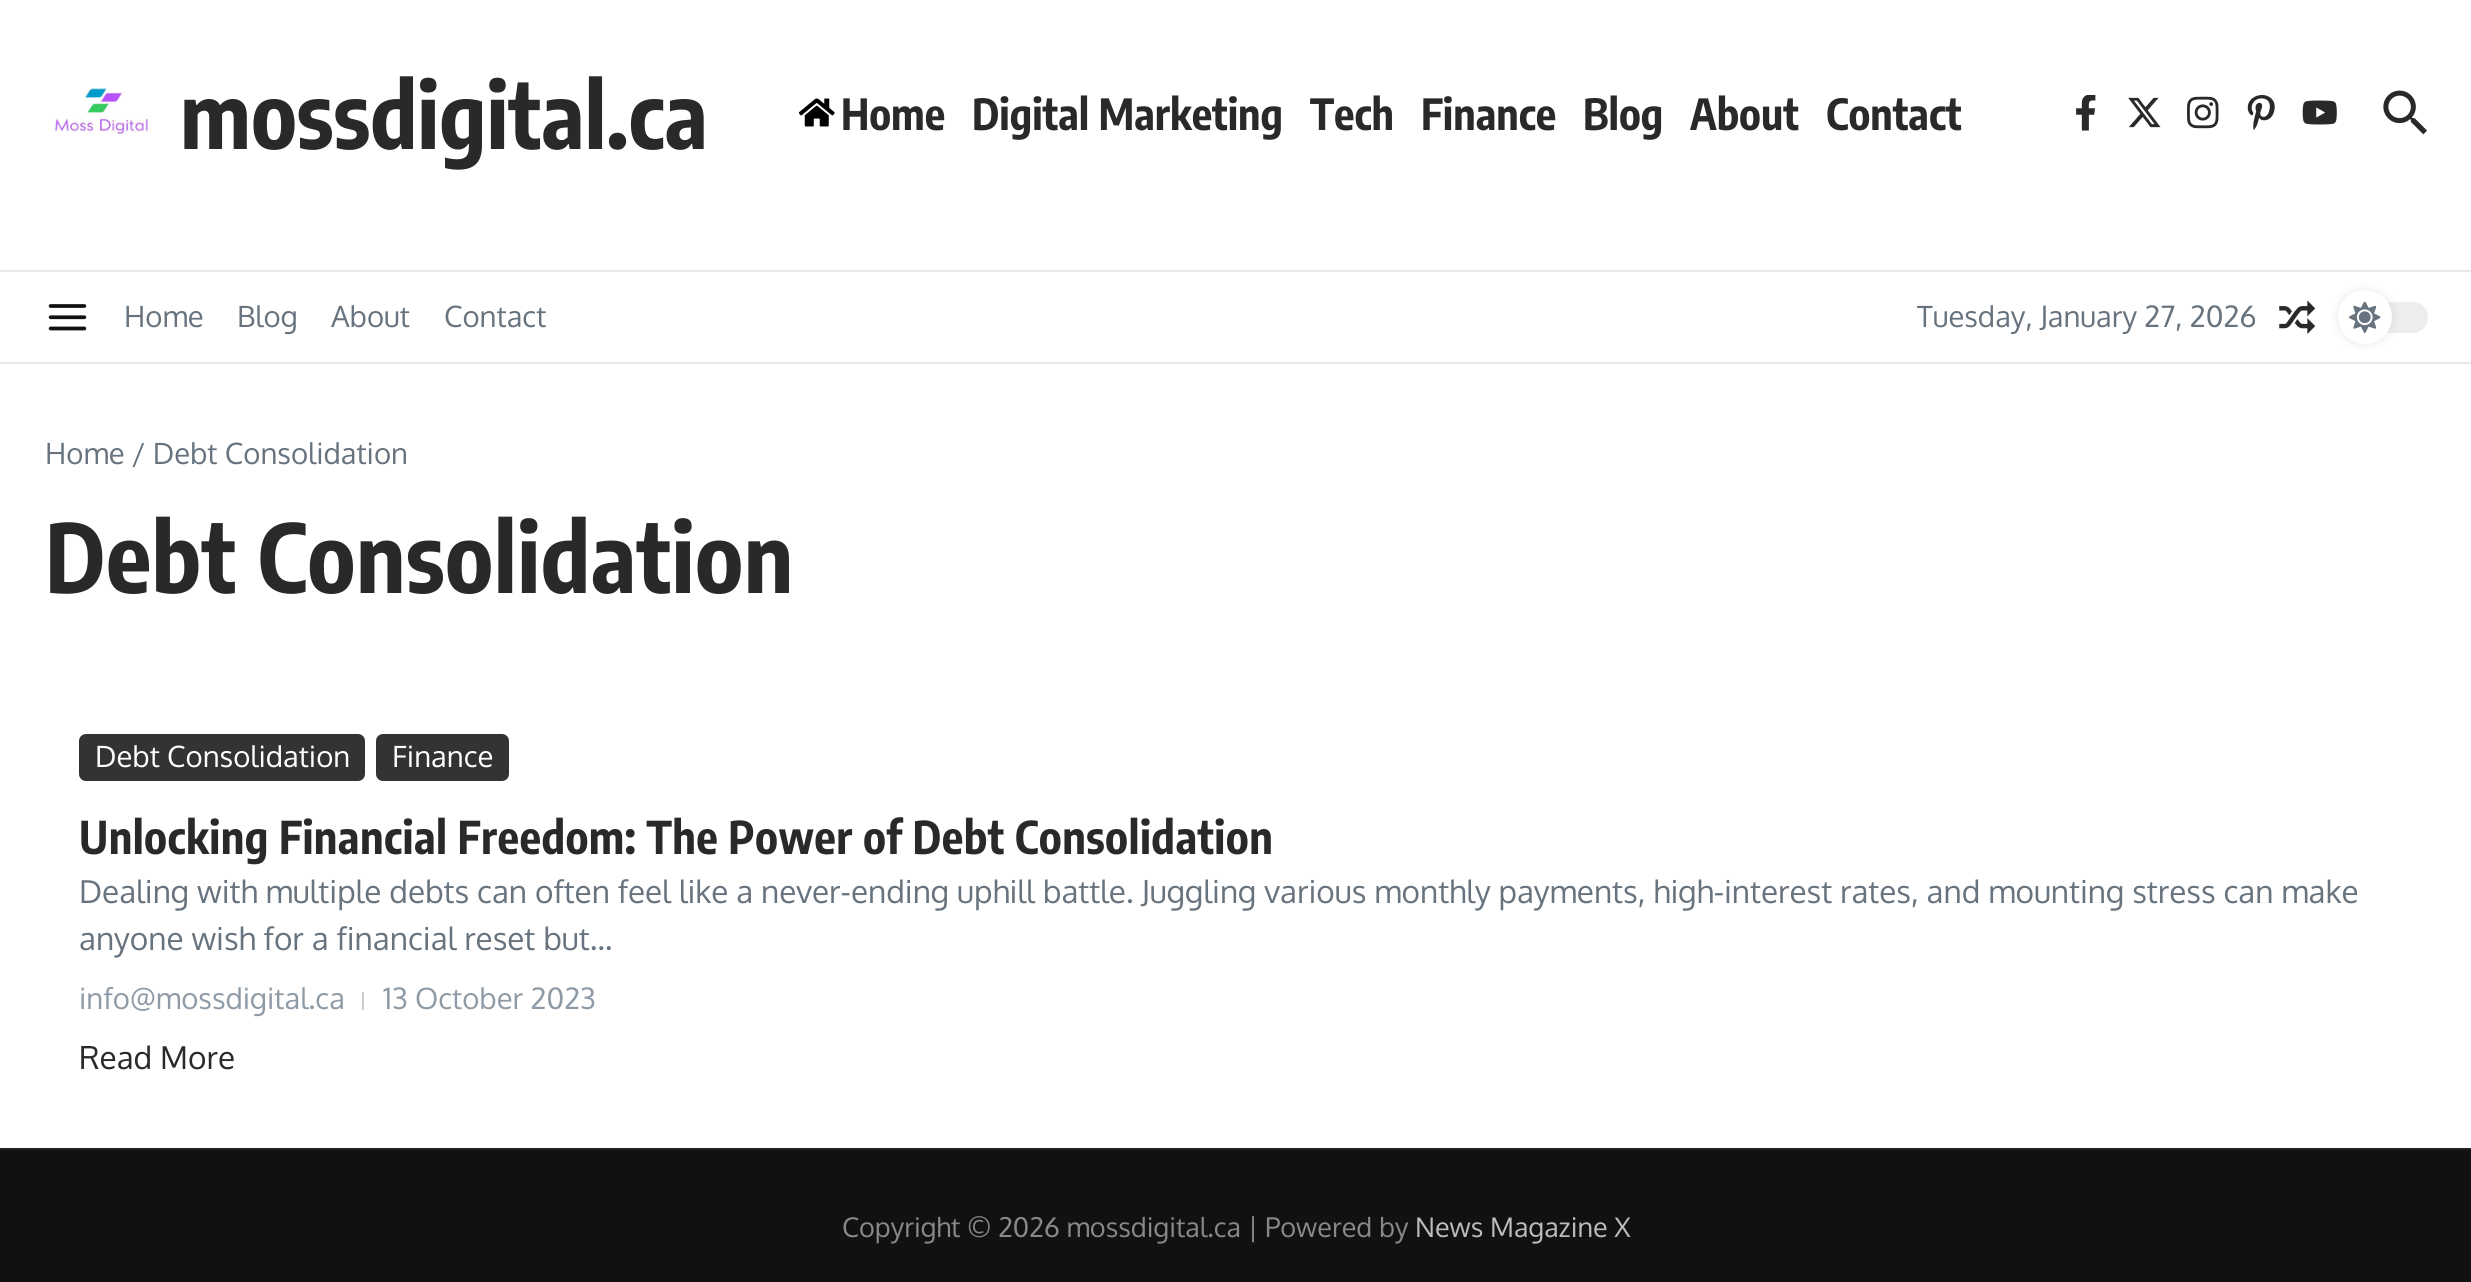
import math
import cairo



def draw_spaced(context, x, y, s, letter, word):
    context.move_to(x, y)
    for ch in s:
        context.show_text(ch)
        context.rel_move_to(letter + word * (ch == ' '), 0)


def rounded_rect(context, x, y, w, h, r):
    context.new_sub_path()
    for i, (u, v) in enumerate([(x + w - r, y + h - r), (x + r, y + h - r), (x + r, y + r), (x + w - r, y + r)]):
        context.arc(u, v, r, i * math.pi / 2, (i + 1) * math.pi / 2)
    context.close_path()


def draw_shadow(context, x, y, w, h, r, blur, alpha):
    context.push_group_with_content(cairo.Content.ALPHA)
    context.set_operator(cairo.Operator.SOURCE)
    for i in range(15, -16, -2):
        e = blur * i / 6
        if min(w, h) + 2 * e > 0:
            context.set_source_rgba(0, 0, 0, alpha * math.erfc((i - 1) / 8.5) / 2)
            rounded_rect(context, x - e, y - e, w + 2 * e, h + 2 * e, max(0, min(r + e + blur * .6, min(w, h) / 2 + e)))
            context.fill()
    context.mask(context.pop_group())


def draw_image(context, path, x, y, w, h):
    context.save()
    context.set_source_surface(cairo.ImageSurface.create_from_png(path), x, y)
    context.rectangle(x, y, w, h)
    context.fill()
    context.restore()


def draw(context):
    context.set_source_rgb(1, 1, 1)
    context.paint()
    context.set_source_rgb(232 / 255, 232 / 255, 232 / 255)
    context.rectangle(0, 270, 2471, 2)
    context.fill()
    draw_image(context, "images/1.png", 53, 88, 96, 46)
    draw_image(context, "images/2.png", 799, 98, 36, 29)
    draw_image(context, "images/3.png", 2076, 95, 20, 36)
    draw_image(context, "images/4.png", 2128, 97, 33, 31)
    draw_image(context, "images/5.png", 2187, 96, 32, 33)
    draw_image(context, "images/6.png", 2247, 95, 28, 35)
    draw_image(context, "images/7.png", 2302, 100, 35, 25)
    draw_image(context, "images/8.png", 2383, 90, 44, 45)
    context.rectangle(0, 362, 2471, 2)
    context.fill()
    draw_image(context, "images/9.png", 48, 304, 39, 27)
    draw_image(context, "images/10.png", 2279, 300, 36, 34)
    context.set_source_rgb(237 / 255, 237 / 255, 237 / 255)
    rounded_rect(context, 2338, 302, 90, 31, 15.5)
    context.fill()
    context.set_source_rgb(0, 0, 0)
    draw_shadow(context, 2338, 290, 54, 54, 27, 4.5, 0.1)
    context.set_source_rgb(1, 1, 1)
    context.arc(2365, 317, 27, 0, 2 * math.pi)
    context.fill()
    draw_image(context, "images/11.png", 2349, 302, 32, 31)
    context.set_source_rgb(51 / 255, 51 / 255, 51 / 255)
    rounded_rect(context, 79, 734, 286, 47, 7)
    context.fill()
    rounded_rect(context, 376, 734, 133, 47, 7)
    context.fill()
    context.set_source_rgb(199 / 255, 205 / 255, 211 / 255)
    context.rectangle(362, 992, 2, 18)
    context.fill()
    context.set_source_rgb(17 / 255, 17 / 255, 17 / 255)
    context.rectangle(0, 1150, 2471, 132)
    context.fill()
    context.set_source_rgb(34 / 255, 34 / 255, 34 / 255)
    context.rectangle(0, 1148, 2471, 2)
    context.fill()
    context.select_font_face("Encode Sans Condensed", cairo.FontSlant.NORMAL, cairo.FontWeight.BOLD)
    context.set_font_size(90)
    context.set_source_rgb(41 / 255, 41 / 255, 41 / 255)
    context.move_to(180, 149)
    context.show_text("mossdigital.ca")
    context.set_font_size(42.75)
    context.move_to(841, 130)
    context.show_text("Home")
    context.move_to(972, 130)
    context.show_text("Digital Marketing")
    context.move_to(1310, 130)
    context.show_text("Tech")
    context.move_to(1421, 130)
    context.show_text("Finance")
    context.move_to(1583, 130)
    context.show_text("Blog")
    context.move_to(1690, 130)
    context.show_text("About")
    context.move_to(1826, 130)
    context.show_text("Contact")
    context.select_font_face("Oxygen")
    context.set_font_size(29.25)
    context.set_source_rgb(103 / 255, 115 / 255, 126 / 255)
    context.move_to(124, 327)
    context.show_text("Home")
    context.move_to(237, 327)
    context.show_text("Blog")
    context.move_to(331, 327)
    context.show_text("About")
    context.move_to(444, 327)
    context.show_text("Contact")
    context.move_to(1917, 327)
    context.show_text("Tuesday, January 27, 2026")
    context.move_to(45, 464)
    context.show_text("Home / Debt Consolidation")
    context.select_font_face("Encode Sans Condensed", cairo.FontSlant.NORMAL, cairo.FontWeight.BOLD)
    context.set_font_size(94.5)
    context.set_source_rgb(41 / 255, 41 / 255, 41 / 255)
    draw_spaced(context, 45, 593, "Debt Consolidation", 0.45, 0)
    context.select_font_face("Oxygen")
    context.set_font_size(29.25)
    context.set_source_rgb(1, 1, 1)
    context.move_to(95, 767)
    context.show_text("Debt Consolidation")
    context.move_to(392, 767)
    context.show_text("Finance")
    context.select_font_face("Encode Sans Condensed", cairo.FontSlant.NORMAL, cairo.FontWeight.BOLD)
    context.set_font_size(45)
    context.set_source_rgb(41 / 255, 41 / 255, 41 / 255)
    draw_spaced(context, 79, 854, "Unlocking Financial Freedom: The Power of Debt Consolidation", 0.45, 0)
    context.select_font_face("Oxygen")
    context.set_font_size(31.5)
    context.set_source_rgb(103 / 255, 115 / 255, 126 / 255)
    context.move_to(79, 903)
    context.show_text("Dealing with multiple debts can often feel like a never-ending uphill battle. Juggling various monthly payments, high-interest rates, and mounting stress can make")
    context.move_to(79, 950)
    context.show_text("anyone wish for a financial reset but...")
    context.set_font_size(29.25)
    context.set_source_rgb(142 / 255, 155 / 255, 167 / 255)
    context.move_to(79, 1009)
    context.show_text("info@mossdigital.ca")
    context.move_to(383, 1009)
    context.show_text("13 October 2023")
    context.set_font_size(31.5)
    context.set_source_rgb(41 / 255, 41 / 255, 41 / 255)
    context.move_to(79, 1069)
    context.show_text("Read More")
    context.set_font_size(27)
    context.set_source_rgb(136 / 255, 136 / 255, 136 / 255)
    context.move_to(842, 1237)
    context.show_text("Copyright © 2026 mossdigital.ca | Powered by")
    context.set_source_rgb(188 / 255, 188 / 255, 188 / 255)
    context.move_to(1415, 1237)
    context.show_text("News Magazine X")


surface = cairo.ImageSurface(cairo.Format.RGB24, 2471, 1282)
context = cairo.Context(surface)
options = cairo.FontOptions()
options.set_hint_metrics(cairo.HintMetrics.OFF)
options.set_hint_style(cairo.HintStyle.NONE)
context.set_font_options(options)
context.set_miter_limit(4)
draw(context)
surface.write_to_png("out.png")
